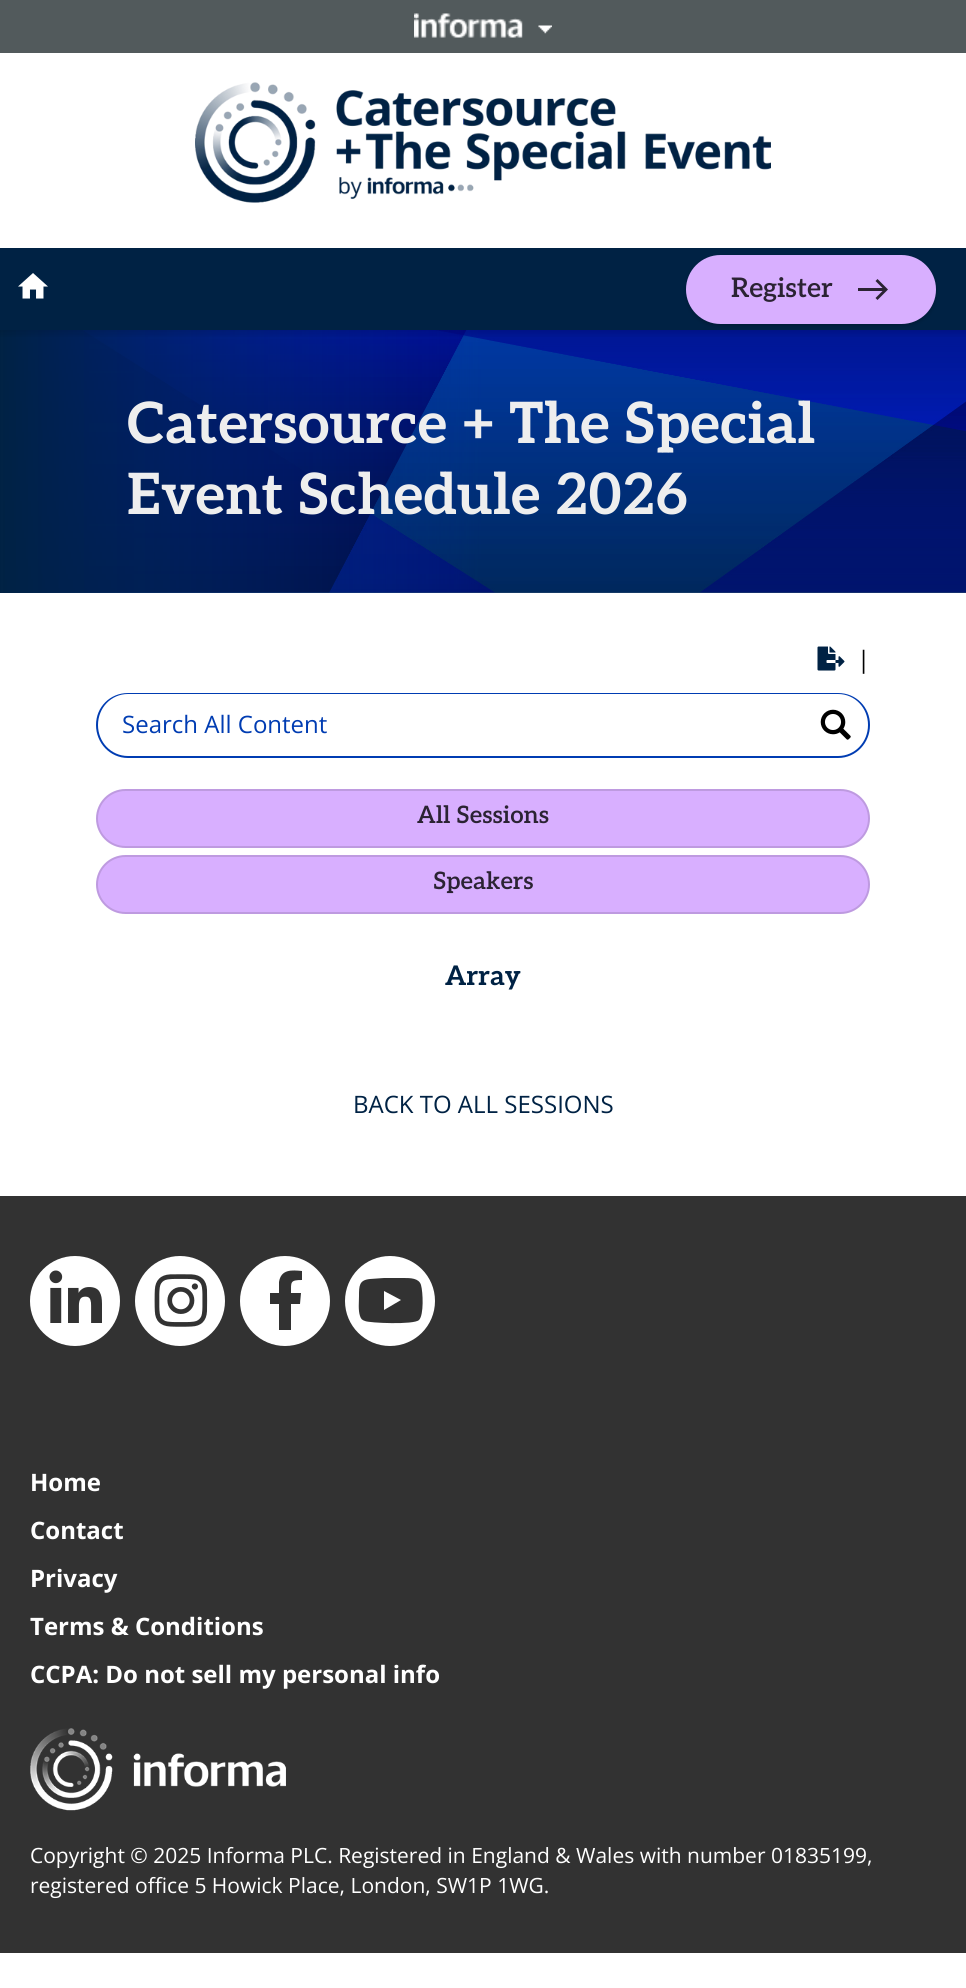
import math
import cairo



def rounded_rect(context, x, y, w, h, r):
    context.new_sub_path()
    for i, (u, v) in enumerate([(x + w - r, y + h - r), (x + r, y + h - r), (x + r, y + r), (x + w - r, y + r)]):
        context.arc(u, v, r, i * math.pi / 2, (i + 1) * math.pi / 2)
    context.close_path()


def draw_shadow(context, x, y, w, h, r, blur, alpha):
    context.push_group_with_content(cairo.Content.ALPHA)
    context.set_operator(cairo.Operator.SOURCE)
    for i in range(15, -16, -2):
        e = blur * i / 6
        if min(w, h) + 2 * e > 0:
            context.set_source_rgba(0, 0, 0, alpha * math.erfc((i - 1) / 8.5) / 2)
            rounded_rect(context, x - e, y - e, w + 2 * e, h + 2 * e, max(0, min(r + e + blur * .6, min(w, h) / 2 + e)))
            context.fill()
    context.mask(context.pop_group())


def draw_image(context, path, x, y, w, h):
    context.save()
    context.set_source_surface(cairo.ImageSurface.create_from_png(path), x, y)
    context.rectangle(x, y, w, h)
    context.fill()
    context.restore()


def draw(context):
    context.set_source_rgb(1, 1, 1)
    context.paint()
    context.set_source_rgb(82 / 255, 90 / 255, 92 / 255)
    context.rectangle(0, 0, 966, 53)
    context.fill()
    draw_image(context, "images/1.png", 414, 13, 138, 25)
    draw_image(context, "images/2.png", 195, 82, 576, 121)
    context.set_source_rgb(0, 34 / 255, 68 / 255)
    context.rectangle(0, 248, 966, 82)
    context.fill()
    draw_image(context, "images/3.png", 18, 273, 30, 26)
    context.set_source_rgb(0, 0, 0)
    draw_shadow(context, 686, 257, 250, 69, 34.5, 2, 0.2)
    context.set_source_rgb(216 / 255, 175 / 255, 1)
    rounded_rect(context, 686, 255, 250, 69, 34.5)
    context.fill()
    context.set_source_rgb(43 / 255, 35 / 255, 51 / 255)
    context.new_path()
    context.move_to(877.5, 279)
    context.line_to(875.5, 281)
    context.line_to(882.5, 288)
    context.line_to(858, 288)
    context.line_to(858, 291)
    context.line_to(882.5, 291)
    context.line_to(875.5, 298)
    context.line_to(877.5, 300)
    context.line_to(888, 289.5)
    context.close_path()
    context.fill()
    context.set_source_rgb(51 / 255, 78 / 255, 106 / 255)
    context.rectangle(3, 592, 963, 1)
    context.fill()
    draw_image(context, "images/4.png", 3, 330, 963, 263)
    gradient = cairo.LinearGradient(0, 461, 966, 461)
    gradient.add_color_stop_rgba(0, 0, 34 / 255, 68 / 255, 1)
    gradient.add_color_stop_rgba(0.5, 0, 60 / 255, 178 / 255, 0.1)
    context.set_source(gradient)
    context.rectangle(0, 330, 966, 263)
    context.fill()
    gradient = cairo.LinearGradient(483, 330, 483, 339)
    gradient.add_color_stop_rgba(0, 0, 0, 0, 0.1)
    gradient.add_color_stop_rgba(1, 0, 0, 0, 0)
    context.set_source(gradient)
    context.rectangle(0, 330, 966, 7)
    context.fill()
    draw_image(context, "images/5.png", 817, 646, 28, 25)
    context.set_source_rgb(0, 60 / 255, 178 / 255)
    context.set_fill_rule(cairo.FillRule.EVEN_ODD)
    context.new_path()
    context.move_to(808, 693)
    context.line_to(838, 693)
    context.curve_to(856, 693, 870, 707, 870, 725)
    context.curve_to(870, 743, 856, 758, 838, 758)
    context.line_to(808, 758)
    context.close_path()
    context.move_to(808, 694)
    context.line_to(838, 694)
    context.curve_to(855, 694, 868, 708, 868, 725)
    context.curve_to(868, 742, 855, 756, 838, 756)
    context.line_to(808, 756)
    context.close_path()
    context.fill()
    context.new_path()
    context.move_to(128, 693)
    context.line_to(810, 693)
    context.line_to(810, 758)
    context.line_to(128, 758)
    context.curve_to(110, 758, 96, 743, 96, 725)
    context.curve_to(96, 707, 110, 693, 128, 693)
    context.close_path()
    context.move_to(128, 694)
    context.line_to(810, 694)
    context.line_to(810, 756)
    context.line_to(128, 756)
    context.curve_to(111, 756, 98, 742, 98, 725)
    context.curve_to(98, 708, 111, 694, 128, 694)
    context.close_path()
    context.fill()
    draw_image(context, "images/6.png", 820, 709, 31, 31)
    context.set_source_rgb(216 / 255, 175 / 255, 1)
    rounded_rect(context, 97, 790, 772, 57, 28.5)
    context.fill_preserve()
    context.set_source_rgb(190 / 255, 154 / 255, 224 / 255)
    context.stroke()
    context.set_source_rgb(216 / 255, 175 / 255, 1)
    rounded_rect(context, 97, 856, 772, 57, 28.5)
    context.fill_preserve()
    context.set_source_rgb(190 / 255, 154 / 255, 224 / 255)
    context.stroke()
    context.set_source_rgb(50 / 255, 50 / 255, 50 / 255)
    context.rectangle(0, 1196, 966, 757)
    context.fill()
    context.set_source_rgb(1, 1, 1)
    context.arc(75, 1301, 45, 0, 2 * math.pi)
    context.fill()
    draw_image(context, "images/7.png", 49, 1270, 53, 53)
    context.arc(180, 1301, 45, 0, 2 * math.pi)
    context.fill()
    draw_image(context, "images/8.png", 154, 1274, 54, 53)
    context.arc(285, 1301, 45, 0, 2 * math.pi)
    context.fill()
    context.set_source_rgb(50 / 255, 50 / 255, 50 / 255)
    context.set_fill_rule(cairo.FillRule.WINDING)
    context.new_path()
    context.move_to(300, 1304)
    context.line_to(291, 1304)
    context.line_to(291, 1330)
    context.line_to(279, 1330)
    context.line_to(279, 1304)
    context.line_to(270, 1304)
    context.line_to(270, 1293)
    context.line_to(279, 1293)
    context.line_to(279, 1282)
    context.curve_to(281, 1269, 292, 1270, 302, 1271)
    context.line_to(302, 1280)
    context.curve_to(290, 1280, 291, 1282, 291, 1293)
    context.line_to(301, 1293)
    context.close_path()
    context.fill()
    context.set_source_rgb(1, 1, 1)
    context.arc(390, 1301, 45, 0, 2 * math.pi)
    context.fill()
    context.set_source_rgb(50 / 255, 50 / 255, 50 / 255)
    context.new_path()
    context.move_to(421, 1285)
    context.curve_to(423, 1292, 424, 1315, 419, 1320)
    context.curve_to(414, 1325, 369, 1323, 365, 1321)
    context.curve_to(362, 1320, 361, 1319, 360, 1316)
    context.curve_to(358, 1310, 359, 1302, 359, 1296)
    context.curve_to(359, 1286, 359, 1280, 370, 1279)
    context.line_to(384, 1278)
    context.line_to(404, 1278)
    context.curve_to(410, 1278, 419, 1278, 421, 1285)
    context.close_path()
    context.move_to(384, 1310)
    context.line_to(401, 1300)
    context.line_to(384, 1291)
    context.close_path()
    context.fill()
    draw_image(context, "images/9.png", 30, 1728, 256, 83)
    context.select_font_face("Aleo SemiBold")
    context.set_font_size(27)
    context.set_source_rgb(43 / 255, 35 / 255, 51 / 255)
    context.move_to(731, 297)
    context.show_text("Register")
    context.select_font_face("Aleo", cairo.FontSlant.NORMAL, cairo.FontWeight.BOLD)
    context.set_font_size(57)
    context.set_source_rgb(238 / 255, 238 / 255, 238 / 255)
    context.move_to(127, 443)
    context.show_text("Catersource + The Special")
    context.move_to(127, 514)
    context.show_text("Event Schedule 2026")
    context.select_font_face("Open Sans")
    context.set_font_size(24)
    context.set_source_rgb(0, 0, 0)
    context.move_to(857, 668)
    context.show_text("|")
    context.set_source_rgb(0, 60 / 255, 178 / 255)
    context.move_to(122, 733)
    context.show_text("Search All Content")
    context.select_font_face("Aleo SemiBold")
    context.set_source_rgb(43 / 255, 35 / 255, 51 / 255)
    context.move_to(417, 823)
    context.show_text("All Sessions")
    context.move_to(433, 889)
    context.show_text("Speakers")
    context.select_font_face("Aleo", cairo.FontSlant.NORMAL, cairo.FontWeight.BOLD)
    context.set_font_size(27)
    context.set_source_rgb(0, 34 / 255, 68 / 255)
    context.move_to(445, 985)
    context.show_text("Array")
    context.select_font_face("Open Sans")
    context.set_font_size(24)
    context.move_to(353, 1113)
    context.show_text("BACK TO ALL SESSIONS")
    context.select_font_face("Open Sans", cairo.FontSlant.NORMAL, cairo.FontWeight.BOLD)
    context.set_source_rgb(1, 1, 1)
    context.move_to(30, 1491)
    context.show_text("Home")
    context.move_to(30, 1539)
    context.show_text("Contact")
    context.move_to(30, 1587)
    context.show_text("Privacy")
    context.move_to(30, 1635)
    context.show_text("Terms & Conditions")
    context.move_to(30, 1683)
    context.show_text("CCPA: Do not sell my personal info")
    context.select_font_face("Open Sans")
    context.set_font_size(21)
    context.move_to(30, 1863)
    context.show_text("Copyright © 2025 Informa PLC. Registered in England & Wales with number 01835199,")
    context.move_to(30, 1893)
    context.show_text("registered office 5 Howick Place, London, SW1P 1WG.")


surface = cairo.ImageSurface(cairo.Format.RGB24, 966, 1988)
context = cairo.Context(surface)
options = cairo.FontOptions()
options.set_hint_metrics(cairo.HintMetrics.OFF)
options.set_hint_style(cairo.HintStyle.NONE)
context.set_font_options(options)
context.set_miter_limit(4)
draw(context)
surface.write_to_png("out.png")
